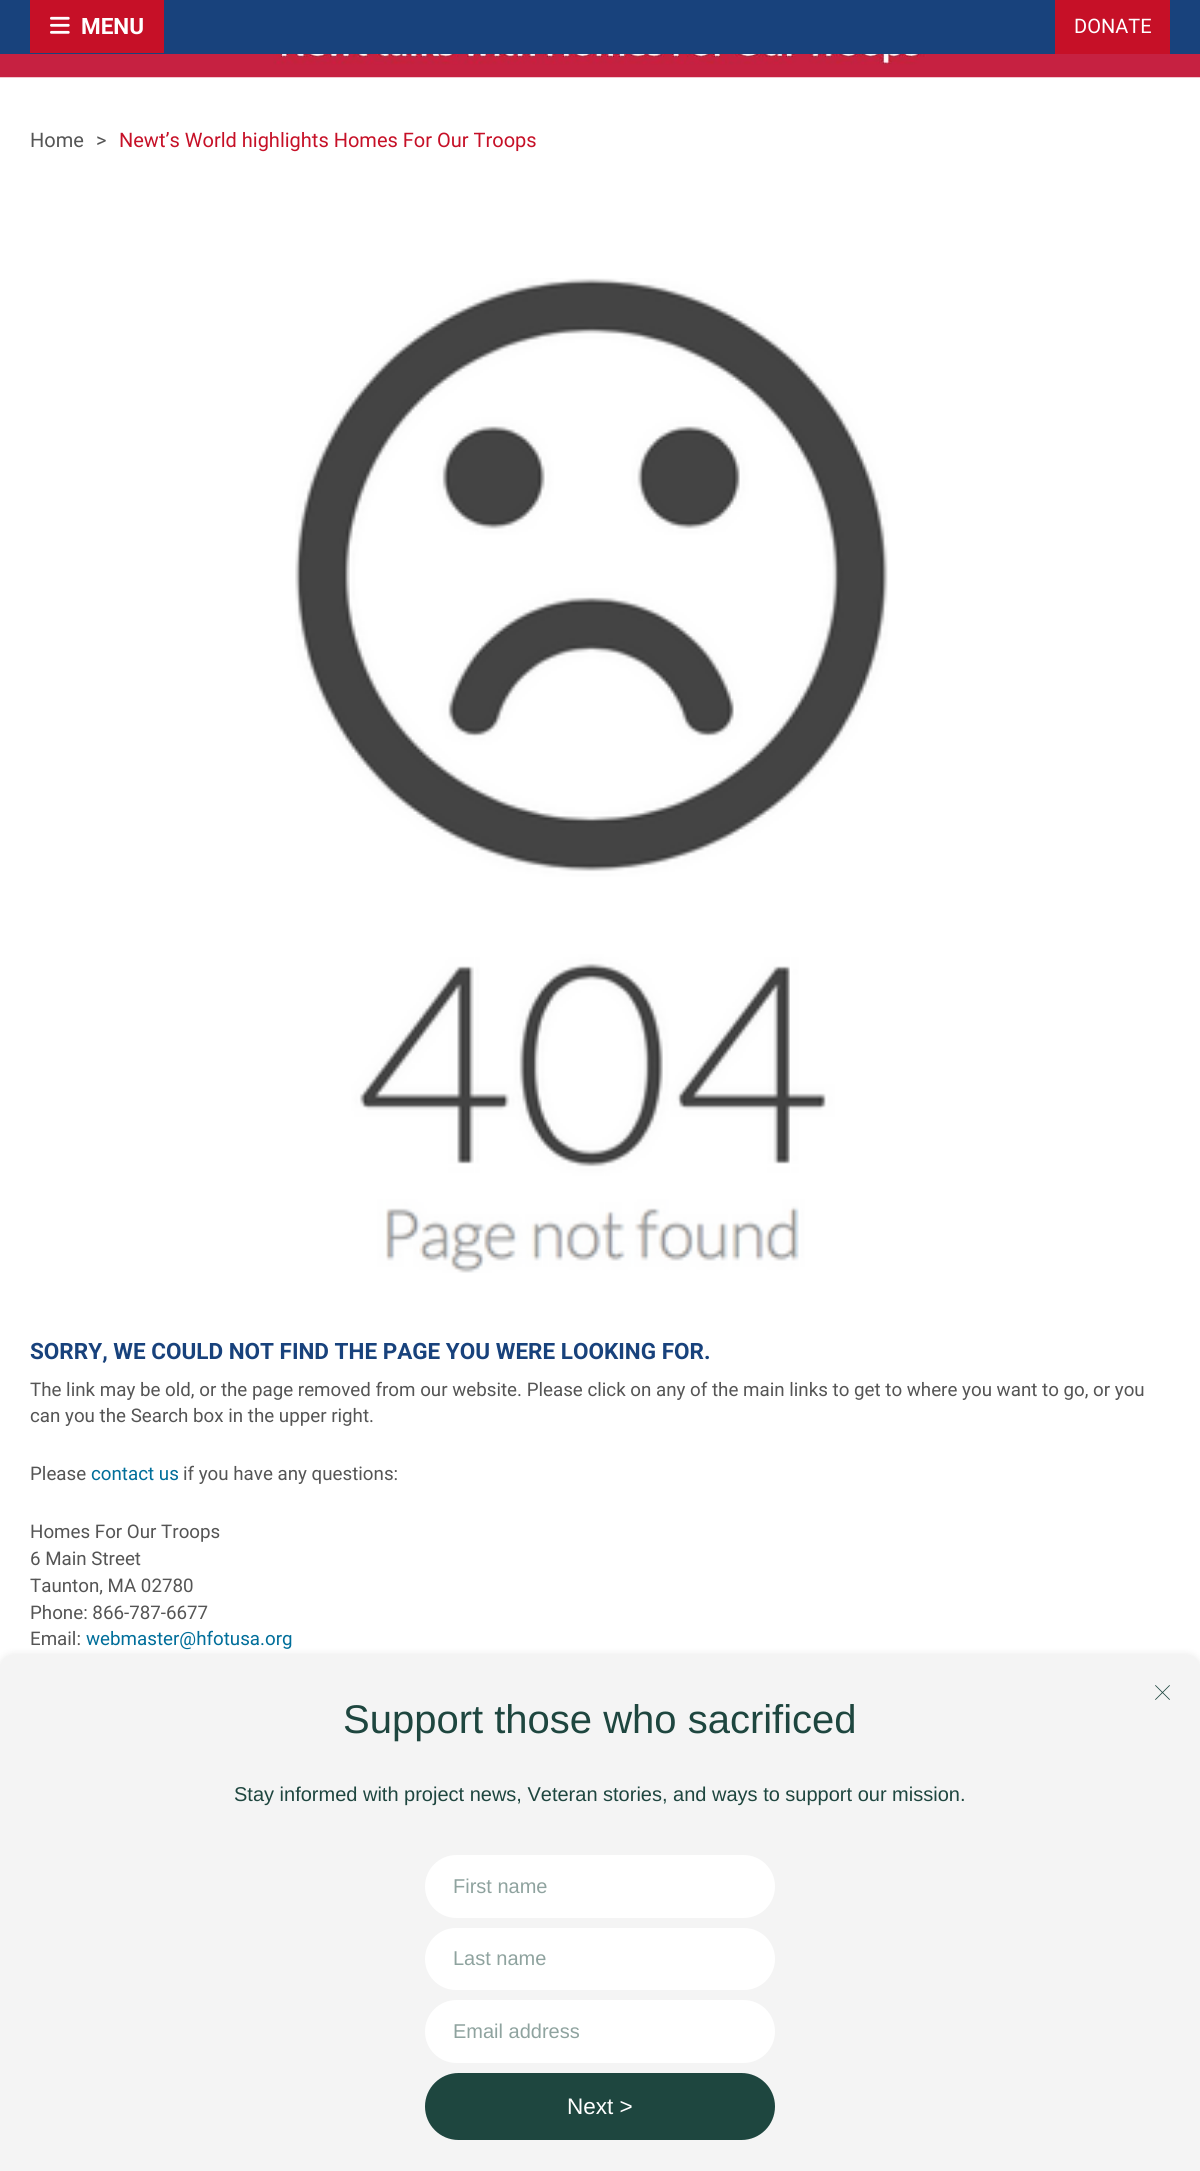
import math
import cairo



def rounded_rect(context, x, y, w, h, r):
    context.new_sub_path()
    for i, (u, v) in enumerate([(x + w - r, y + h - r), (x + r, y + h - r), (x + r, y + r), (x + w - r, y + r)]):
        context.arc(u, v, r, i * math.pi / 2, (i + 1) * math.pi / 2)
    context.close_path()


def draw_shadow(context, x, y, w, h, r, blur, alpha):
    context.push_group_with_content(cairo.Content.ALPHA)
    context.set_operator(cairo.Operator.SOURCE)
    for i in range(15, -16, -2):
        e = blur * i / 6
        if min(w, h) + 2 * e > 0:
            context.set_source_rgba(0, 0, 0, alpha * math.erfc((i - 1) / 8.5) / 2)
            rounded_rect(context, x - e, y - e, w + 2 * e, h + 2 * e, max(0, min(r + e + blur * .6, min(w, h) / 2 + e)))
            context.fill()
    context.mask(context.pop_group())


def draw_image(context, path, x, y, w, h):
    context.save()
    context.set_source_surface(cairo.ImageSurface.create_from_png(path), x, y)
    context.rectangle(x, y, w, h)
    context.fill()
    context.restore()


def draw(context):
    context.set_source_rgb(1, 1, 1)
    context.paint()
    context.set_source_rgb(24 / 255, 66 / 255, 124 / 255)
    context.rectangle(0, 0, 1200, 54)
    context.fill()
    context.set_source_rgb(198 / 255, 16 / 255, 39 / 255)
    context.rectangle(30, 0, 134, 53)
    context.fill()
    draw_image(context, "images/1.png", 50, 16, 20, 18)
    context.rectangle(1055, 0, 115, 54)
    context.fill()
    draw_image(context, "images/2.png", 0, 54, 1200, 24)
    draw_image(context, "images/3.png", 295, 278, 593, 995)
    context.set_source_rgb(0, 0, 0)
    draw_shadow(context, 0, 1655, 1200, 516, 13, 4, 0.1)
    context.set_source_rgb(244 / 255, 244 / 255, 244 / 255)
    context.new_path()
    context.move_to(13, 1655)
    context.line_to(1187, 1655)
    context.curve_to(1194, 1655, 1200, 1661, 1200, 1668)
    context.line_to(1200, 2171)
    context.line_to(0, 2171)
    context.line_to(0, 1668)
    context.curve_to(0, 1661, 6, 1655, 13, 1655)
    context.close_path()
    context.fill()
    context.new_path()
    context.move_to(1155.5, 1685.5)
    context.line_to(1169.5, 1699.5)
    context.move_to(1169.5, 1685.5)
    context.line_to(1155.5, 1699.5)
    context.set_source_rgb(30 / 255, 70 / 255, 63 / 255)
    context.set_line_width(0.8)
    context.set_line_cap(cairo.LineCap.ROUND)
    context.stroke()
    context.set_source_rgb(1, 1, 1)
    rounded_rect(context, 425, 1855, 350, 63, 31.5)
    context.fill()
    rounded_rect(context, 425, 1928, 350, 62, 31)
    context.fill()
    rounded_rect(context, 425, 2000, 350, 63, 31.5)
    context.fill()
    context.set_source_rgb(30 / 255, 70 / 255, 63 / 255)
    rounded_rect(context, 425, 2073, 350, 67, 33.5)
    context.fill()
    context.select_font_face("Roboto", cairo.FontSlant.NORMAL, cairo.FontWeight.BOLD)
    context.set_font_size(22.5)
    context.set_source_rgb(1, 1, 1)
    context.move_to(81, 34)
    context.show_text("MENU")
    context.select_font_face("Roboto")
    context.set_font_size(20)
    context.move_to(1074, 33)
    context.show_text("DONATE")
    context.set_source_rgb(85 / 255, 85 / 255, 85 / 255)
    context.move_to(30, 147)
    context.show_text("Home")
    context.move_to(96, 147)
    context.show_text(">")
    context.set_source_rgb(198 / 255, 16 / 255, 39 / 255)
    context.move_to(119, 147)
    context.show_text("Newt’s World highlights Homes For Our Troops")
    context.select_font_face("Roboto", cairo.FontSlant.NORMAL, cairo.FontWeight.BOLD)
    context.set_font_size(22.5)
    context.set_source_rgb(24 / 255, 66 / 255, 124 / 255)
    context.move_to(30, 1359)
    context.show_text("SORRY, WE COULD NOT FIND THE PAGE YOU WERE LOOKING FOR.")
    context.select_font_face("Roboto")
    context.set_font_size(18.75)
    context.set_source_rgb(85 / 255, 85 / 255, 85 / 255)
    context.move_to(30, 1396)
    context.show_text("The link may be old, or the page removed from our website. Please click on any of the main links to get to where you want to go, or you")
    context.move_to(30, 1422)
    context.show_text("can you the Search box in the upper right.")
    context.move_to(30, 1480)
    context.show_text("Please")
    context.set_source_rgb(0, 110 / 255, 154 / 255)
    context.move_to(91, 1480)
    context.show_text("contact us")
    context.set_source_rgb(85 / 255, 85 / 255, 85 / 255)
    context.move_to(183, 1480)
    context.show_text("if you have any questions:")
    context.move_to(30, 1538)
    context.show_text("Homes For Our Troops")
    context.move_to(30, 1565)
    context.show_text("6 Main Street")
    context.move_to(30, 1592)
    context.show_text("Taunton, MA 02780")
    context.move_to(30, 1619)
    context.show_text("Phone: 866-787-6677")
    context.move_to(30, 1645)
    context.show_text("Email:")
    context.set_source_rgb(0, 110 / 255, 154 / 255)
    context.move_to(86, 1645)
    context.show_text("webmaster@hfotusa.org")
    context.select_font_face("Liberation Sans")
    context.set_font_size(40)
    context.set_source_rgb(30 / 255, 70 / 255, 63 / 255)
    context.move_to(343, 1733)
    context.show_text("Support those who sacrificed")
    context.set_font_size(20)
    context.move_to(234, 1801)
    context.show_text("Stay informed with project news, Veteran stories, and ways to support our mission.")
    context.set_source_rgb(143 / 255, 163 / 255, 159 / 255)
    context.move_to(453, 1893)
    context.show_text("First name")
    context.move_to(453, 1965)
    context.show_text("Last name")
    context.move_to(453, 2038)
    context.show_text("Email address")
    context.set_font_size(22.5)
    context.set_source_rgb(1, 1, 1)
    context.move_to(567, 2114)
    context.show_text("Next >")


surface = cairo.ImageSurface(cairo.Format.RGB24, 1200, 2171)
context = cairo.Context(surface)
options = cairo.FontOptions()
options.set_hint_metrics(cairo.HintMetrics.OFF)
options.set_hint_style(cairo.HintStyle.NONE)
context.set_font_options(options)
context.set_miter_limit(4)
draw(context)
surface.write_to_png("out.png")
